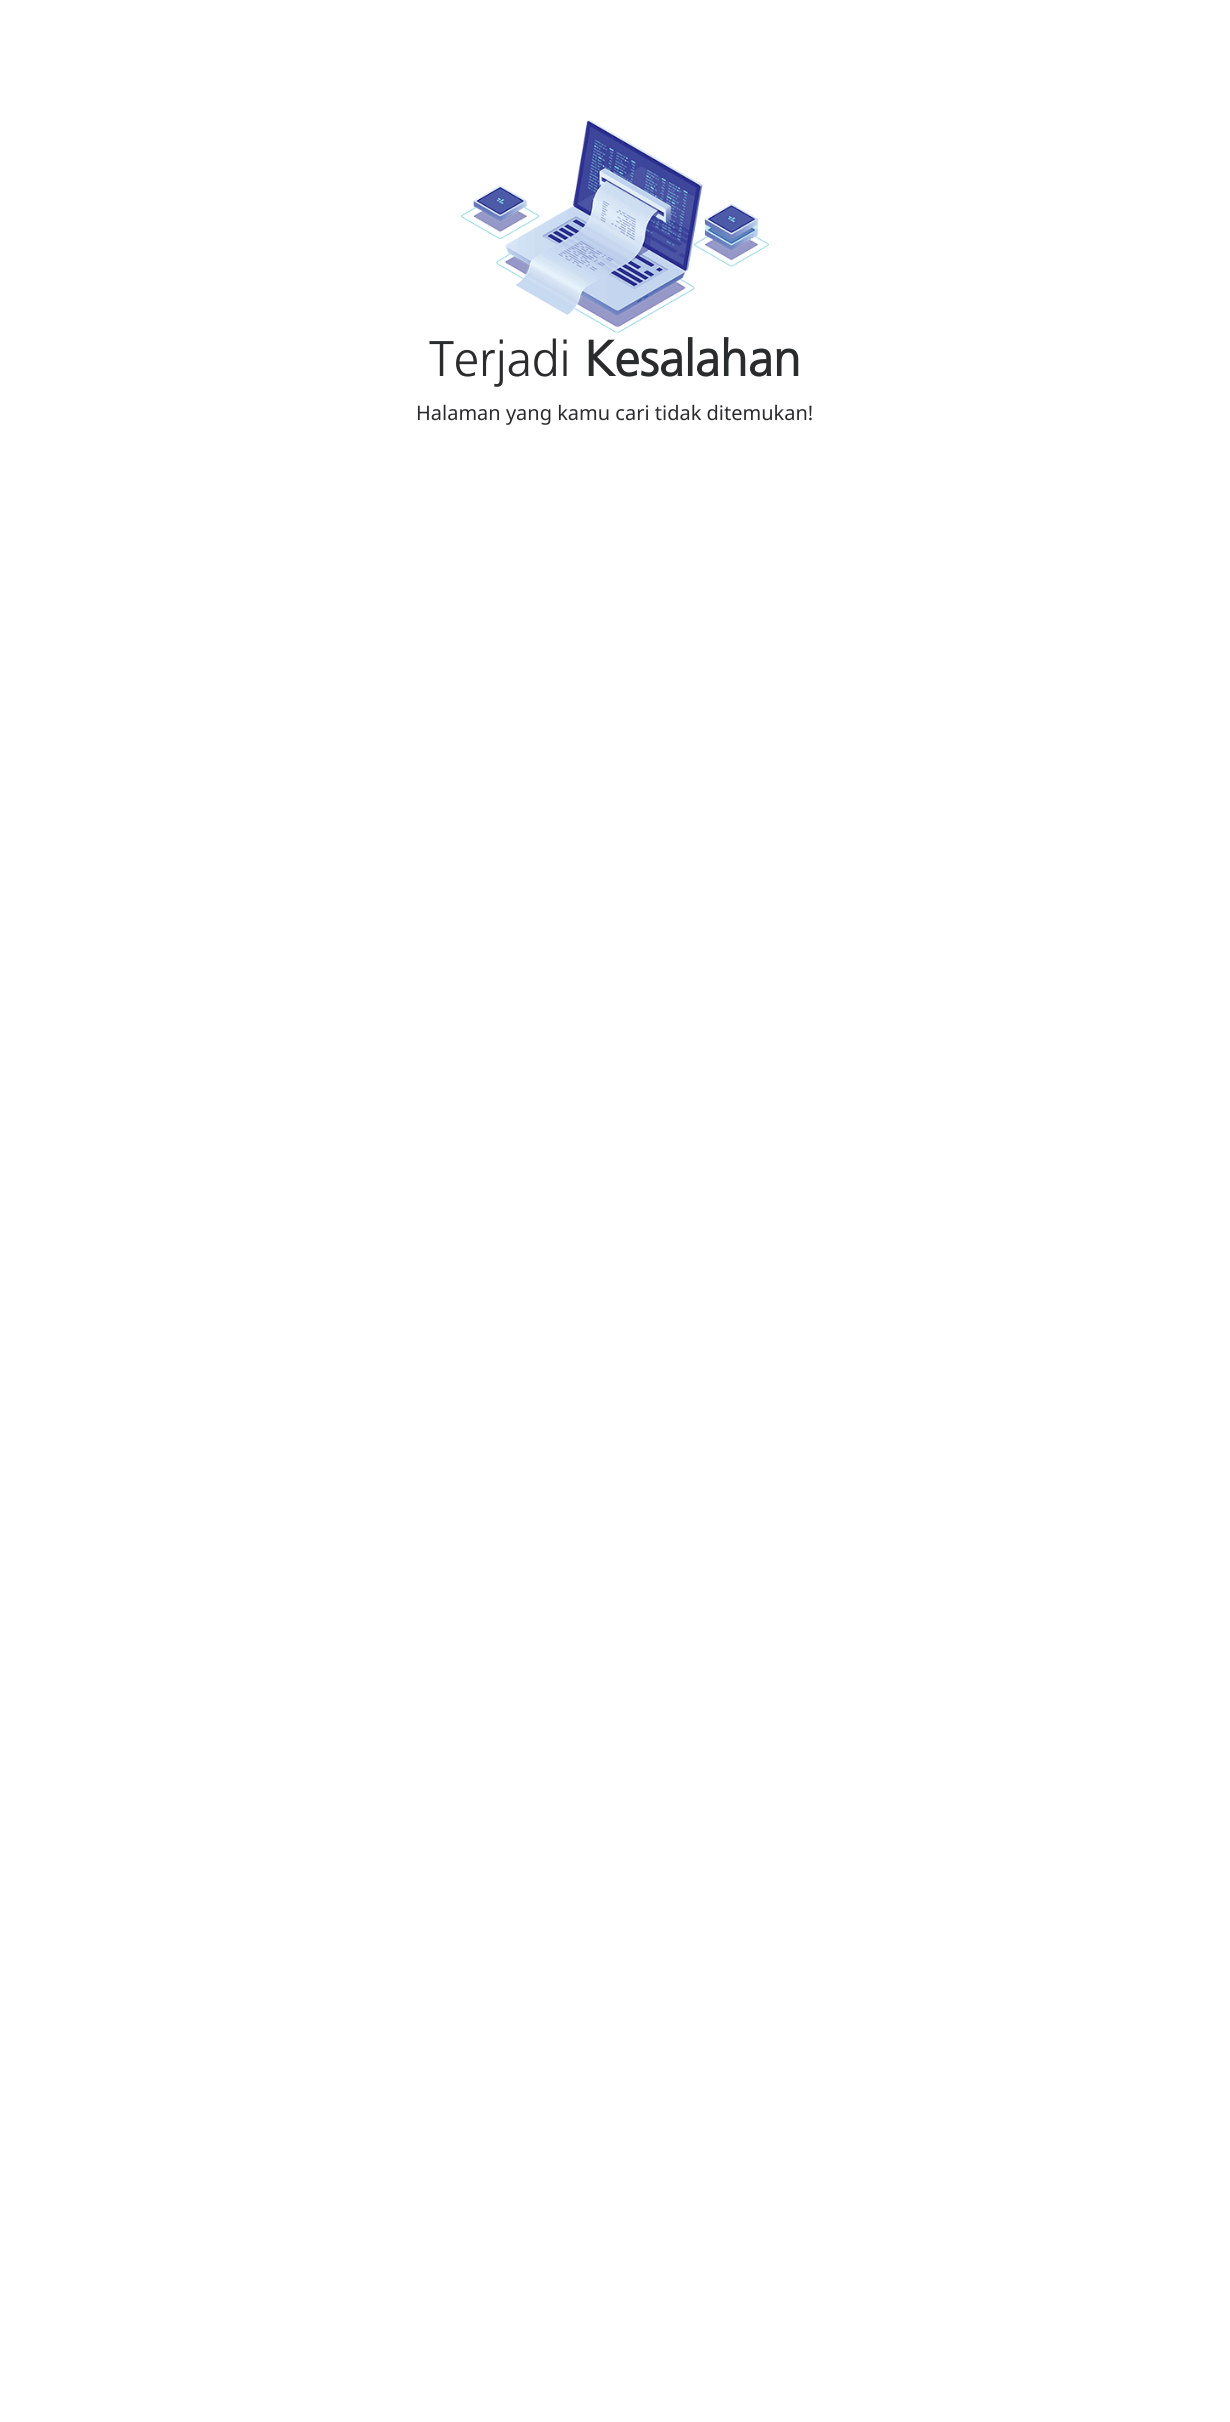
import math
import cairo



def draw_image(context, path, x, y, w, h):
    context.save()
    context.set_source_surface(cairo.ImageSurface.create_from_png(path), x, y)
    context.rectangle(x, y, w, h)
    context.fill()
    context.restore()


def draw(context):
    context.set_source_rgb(1, 1, 1)
    context.paint()
    draw_image(context, "images/1.png", 461, 120, 308, 213)
    context.select_font_face("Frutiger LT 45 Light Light")
    context.set_font_size(50)
    context.set_source_rgb(41 / 255, 43 / 255, 44 / 255)
    context.move_to(429, 376)
    context.show_text("Terjadi")
    context.select_font_face("Frutiger LT 45 Light", cairo.FontSlant.NORMAL, cairo.FontWeight.BOLD)
    context.move_to(584, 376)
    context.show_text("Kesalahan")
    context.select_font_face("Noto Sans")
    context.set_font_size(20)
    context.move_to(416, 420)
    context.show_text("Halaman yang kamu cari tidak ditemukan!")


surface = cairo.ImageSurface(cairo.Format.RGB24, 1230, 2422)
context = cairo.Context(surface)
options = cairo.FontOptions()
options.set_hint_metrics(cairo.HintMetrics.OFF)
options.set_hint_style(cairo.HintStyle.NONE)
context.set_font_options(options)
context.set_miter_limit(4)
draw(context)
surface.write_to_png("out.png")
